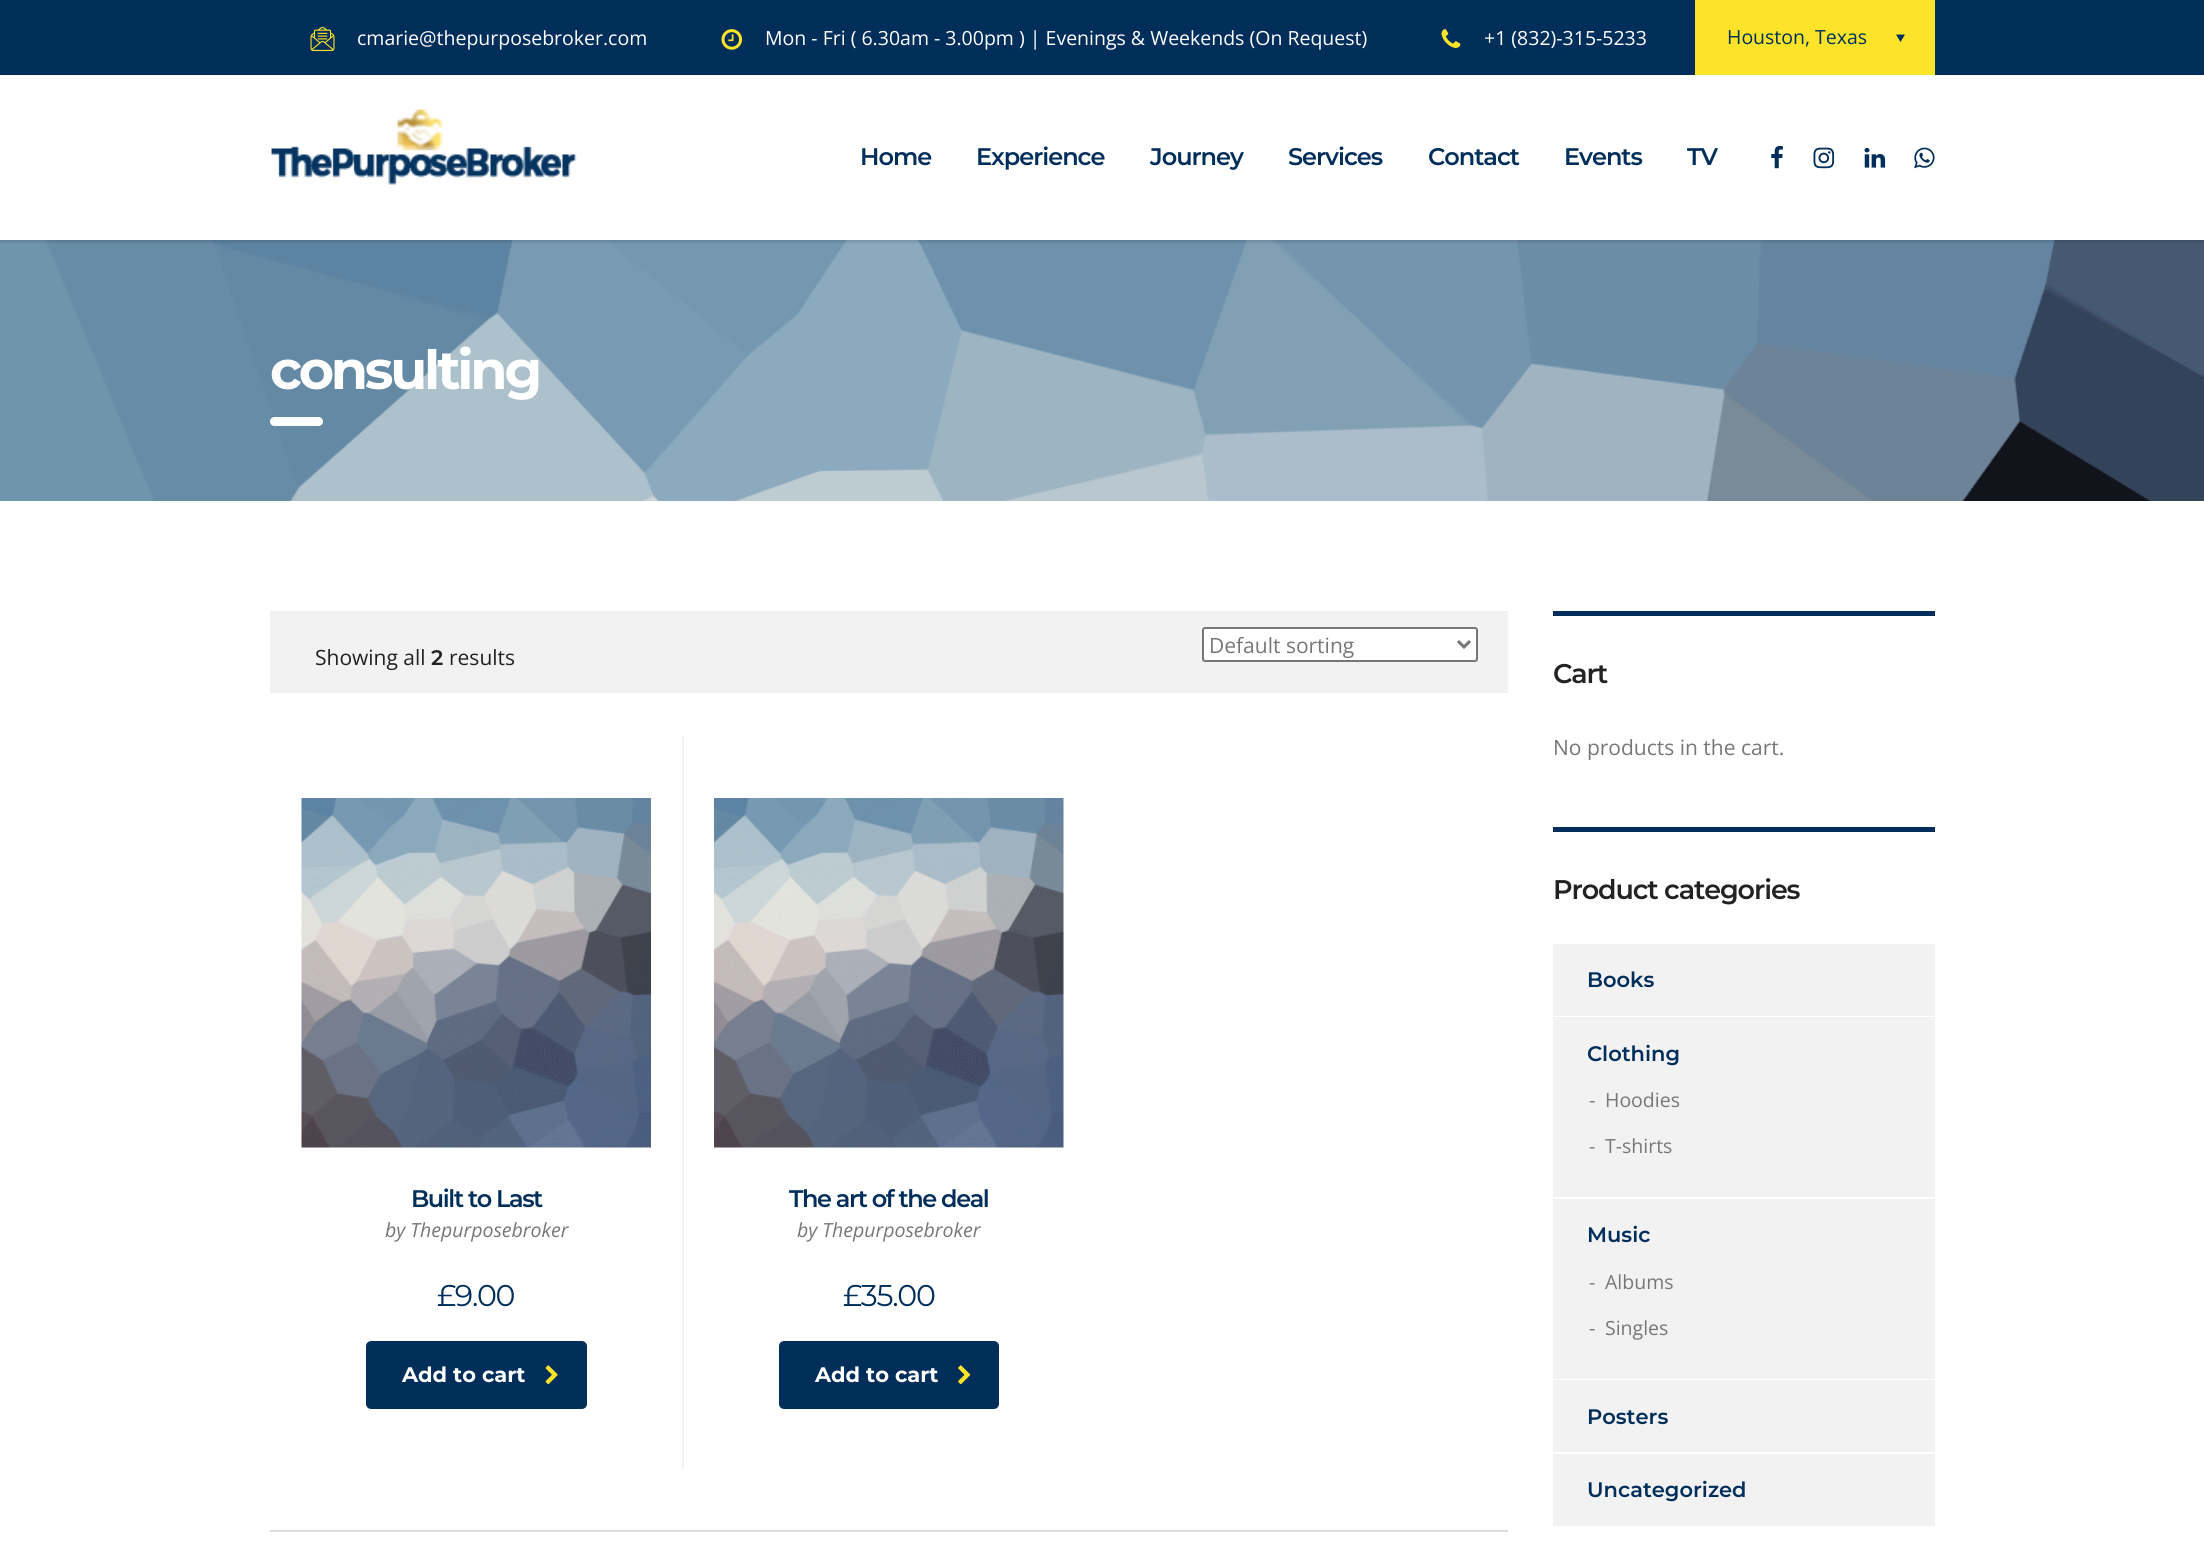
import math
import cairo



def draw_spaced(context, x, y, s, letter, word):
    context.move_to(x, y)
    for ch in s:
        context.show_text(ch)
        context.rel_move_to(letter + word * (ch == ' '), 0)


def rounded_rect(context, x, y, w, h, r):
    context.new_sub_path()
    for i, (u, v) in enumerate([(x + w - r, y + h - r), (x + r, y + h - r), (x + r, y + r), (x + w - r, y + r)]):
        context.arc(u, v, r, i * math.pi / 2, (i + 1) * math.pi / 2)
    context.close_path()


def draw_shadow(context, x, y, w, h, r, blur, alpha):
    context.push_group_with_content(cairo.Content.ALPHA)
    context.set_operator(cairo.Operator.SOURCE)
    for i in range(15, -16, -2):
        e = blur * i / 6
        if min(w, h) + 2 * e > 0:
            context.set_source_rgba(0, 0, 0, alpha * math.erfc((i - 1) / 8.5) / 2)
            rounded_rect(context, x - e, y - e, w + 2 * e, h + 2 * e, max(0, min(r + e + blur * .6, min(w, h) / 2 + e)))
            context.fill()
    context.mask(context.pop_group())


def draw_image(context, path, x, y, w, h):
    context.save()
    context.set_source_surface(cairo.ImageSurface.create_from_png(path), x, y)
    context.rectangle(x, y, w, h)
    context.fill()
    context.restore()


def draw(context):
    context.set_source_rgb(1, 1, 1)
    context.paint()
    draw_image(context, "images/9.png", 0, 240, 2204, 261)
    context.save()
    context.rectangle(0, 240, 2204, 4)
    context.clip()
    context.set_source_rgb(0, 0, 0)
    draw_shadow(context, 0, 77, 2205, 165, 0, 2, 0.15)
    context.restore()
    context.set_source_rgb(0, 46 / 255, 91 / 255)
    context.rectangle(0, 0, 2204, 75)
    context.fill()
    draw_image(context, "images/1.png", 310, 27, 25, 24)
    draw_image(context, "images/2.png", 721, 29, 22, 21)
    draw_image(context, "images/3.png", 1441, 29, 20, 19)
    context.set_source_rgb(253 / 255, 228 / 255, 40 / 255)
    context.rectangle(1695, 0, 240, 75)
    context.fill()
    context.set_source_rgb(0, 46 / 255, 91 / 255)
    context.new_path()
    context.move_to(1896, 34.5)
    context.line_to(1905, 34.5)
    context.line_to(1900.5, 42)
    context.close_path()
    context.fill()
    draw_image(context, "images/4.png", 271, 109, 306, 76)
    draw_image(context, "images/5.png", 1771, 145, 12, 24)
    draw_image(context, "images/6.png", 1813, 147, 22, 22)
    draw_image(context, "images/7.png", 1864, 147, 22, 21)
    draw_image(context, "images/8.png", 1914, 147, 21, 22)
    context.set_source_rgb(1, 1, 1)
    rounded_rect(context, 270, 417, 53, 9, 4.5)
    context.fill()
    context.set_source_rgb(242 / 255, 242 / 255, 242 / 255)
    context.rectangle(270, 611, 1238, 82)
    context.fill()
    context.set_source_rgb(1, 1, 1)
    rounded_rect(context, 1203, 628, 274, 33, 2)
    context.fill_preserve()
    context.set_source_rgb(118 / 255, 118 / 255, 118 / 255)
    context.stroke()
    context.new_path()
    context.move_to(1458, 641)
    context.line_to(1464, 647)
    context.line_to(1470, 641)
    context.set_source_rgb(119 / 255, 119 / 255, 119 / 255)
    context.set_line_width(3)
    context.stroke()
    context.set_source_rgb(221 / 255, 221 / 255, 221 / 255)
    context.rectangle(270, 1530, 1238, 2)
    context.fill()
    draw_image(context, "images/10.png", 301, 798, 350, 350)
    context.set_source_rgb(0, 46 / 255, 91 / 255)
    rounded_rect(context, 368.5, 1343.5, 216, 63, 2.5)
    context.fill_preserve()
    context.set_line_width(5)
    context.stroke()
    draw_image(context, "images/11.png", 545, 1365, 13, 20)
    context.set_source_rgb(242 / 255, 242 / 255, 242 / 255)
    context.new_path()
    context.move_to(682, 1470)
    context.line_to(682, 736)
    context.line_to(684, 738)
    context.line_to(684, 1468)
    context.close_path()
    context.fill()
    draw_image(context, "images/12.png", 714, 798, 350, 350)
    context.set_source_rgb(0, 46 / 255, 91 / 255)
    rounded_rect(context, 781.5, 1343.5, 215, 63, 2.5)
    context.fill_preserve()
    context.stroke()
    draw_image(context, "images/13.png", 958, 1365, 13, 20)
    context.rectangle(1553, 611, 382, 5)
    context.fill()
    context.rectangle(1553, 827, 382, 5)
    context.fill()
    context.set_source_rgb(242 / 255, 242 / 255, 242 / 255)
    context.rectangle(1553, 944, 382, 72)
    context.fill()
    context.rectangle(1553, 1017, 382, 180)
    context.fill()
    context.rectangle(1553, 1199, 382, 180)
    context.fill()
    context.rectangle(1553, 1380, 382, 72)
    context.fill()
    context.rectangle(1553, 1454, 382, 72)
    context.fill()
    context.select_font_face("Open Sans")
    context.set_font_size(19.5)
    context.set_source_rgb(1, 1, 1)
    context.move_to(357, 45)
    context.show_text("cmarie@thepurposebroker.com")
    context.move_to(765, 45)
    context.show_text("Mon - Fri ( 6.30am - 3.00pm ) | Evenings & Weekends (On Request)")
    context.move_to(1484, 45)
    context.show_text("+1 (832)-315-5233")
    context.set_source_rgb(0, 46 / 255, 91 / 255)
    context.move_to(1727, 44)
    context.show_text("Houston, Texas")
    context.select_font_face("Montserrat SemiBold")
    context.set_font_size(24)
    draw_spaced(context, 860, 165, "Home", -1, 0)
    draw_spaced(context, 976, 165, "Experience", -1, 0)
    draw_spaced(context, 1150, 165, "Journey", -1, 0)
    draw_spaced(context, 1288, 165, "Services", -1, 0)
    draw_spaced(context, 1428, 165, "Contact", -1, 0)
    draw_spaced(context, 1564, 165, "Events", -1, 0)
    draw_spaced(context, 1687, 165, "TV", -1, 0)
    context.select_font_face("Montserrat", cairo.FontSlant.NORMAL, cairo.FontWeight.BOLD)
    context.set_font_size(54)
    context.set_source_rgb(1, 1, 1)
    draw_spaced(context, 270, 389, "consulting", -3.25, 0)
    context.select_font_face("Open Sans")
    context.set_font_size(21)
    context.set_source_rgb(34 / 255, 34 / 255, 34 / 255)
    context.move_to(315, 665)
    context.show_text("Showing all")
    context.select_font_face("Montserrat SemiBold")
    context.move_to(431, 665)
    context.show_text("2")
    context.select_font_face("Open Sans")
    context.move_to(449, 665)
    context.show_text("results")
    context.set_source_rgb(119 / 255, 119 / 255, 119 / 255)
    context.move_to(1209, 653)
    context.show_text("Default sorting")
    context.select_font_face("Montserrat SemiBold")
    context.set_font_size(24)
    context.set_source_rgb(0, 46 / 255, 91 / 255)
    draw_spaced(context, 411, 1207, "Built to Last", -1.4, 0)
    context.select_font_face("Open Sans", cairo.FontSlant.ITALIC)
    context.set_font_size(19.5)
    context.set_source_rgb(119 / 255, 119 / 255, 119 / 255)
    context.move_to(385, 1237)
    context.show_text("by Thepurposebroker")
    context.select_font_face("Montserrat")
    context.set_font_size(30)
    context.set_source_rgb(0, 46 / 255, 91 / 255)
    draw_spaced(context, 437, 1306, "£9.00", -1.25, 0)
    context.select_font_face("Montserrat", cairo.FontSlant.NORMAL, cairo.FontWeight.BOLD)
    context.set_font_size(21)
    context.set_source_rgb(1, 1, 1)
    context.move_to(402, 1382)
    context.show_text("Add to cart")
    context.select_font_face("Montserrat SemiBold")
    context.set_font_size(24)
    context.set_source_rgb(0, 46 / 255, 91 / 255)
    draw_spaced(context, 789, 1207, "The art of the deal", -1.4, 0)
    context.select_font_face("Open Sans", cairo.FontSlant.ITALIC)
    context.set_font_size(19.5)
    context.set_source_rgb(119 / 255, 119 / 255, 119 / 255)
    context.move_to(797, 1237)
    context.show_text("by Thepurposebroker")
    context.select_font_face("Montserrat")
    context.set_font_size(30)
    context.set_source_rgb(0, 46 / 255, 91 / 255)
    draw_spaced(context, 843, 1306, "£35.00", -1.25, 0)
    context.select_font_face("Montserrat", cairo.FontSlant.NORMAL, cairo.FontWeight.BOLD)
    context.set_font_size(21)
    context.set_source_rgb(1, 1, 1)
    context.move_to(815, 1382)
    context.show_text("Add to cart")
    context.select_font_face("Montserrat SemiBold")
    context.set_font_size(27)
    context.set_source_rgb(34 / 255, 34 / 255, 34 / 255)
    draw_spaced(context, 1553, 683, "Cart", -1.1, 0)
    context.select_font_face("Open Sans")
    context.set_font_size(21)
    context.set_source_rgb(119 / 255, 119 / 255, 119 / 255)
    context.move_to(1553, 755)
    context.show_text("No products in the cart.")
    context.select_font_face("Montserrat SemiBold")
    context.set_font_size(27)
    context.set_source_rgb(34 / 255, 34 / 255, 34 / 255)
    draw_spaced(context, 1553, 899, "Product categories", -1.1, 0)
    context.set_font_size(21)
    context.set_source_rgb(0, 46 / 255, 91 / 255)
    context.move_to(1587, 987)
    context.show_text("Books")
    context.move_to(1587, 1061)
    context.show_text("Clothing")
    context.select_font_face("Open Sans")
    context.set_font_size(19.5)
    context.set_source_rgb(119 / 255, 119 / 255, 119 / 255)
    context.move_to(1589, 1107)
    context.show_text("-")
    context.move_to(1605, 1107)
    context.show_text("Hoodies")
    context.move_to(1589, 1153)
    context.show_text("-")
    context.move_to(1605, 1153)
    context.show_text("T-shirts")
    context.select_font_face("Montserrat SemiBold")
    context.set_font_size(21)
    context.set_source_rgb(0, 46 / 255, 91 / 255)
    context.move_to(1587, 1242)
    context.show_text("Music")
    context.select_font_face("Open Sans")
    context.set_font_size(19.5)
    context.set_source_rgb(119 / 255, 119 / 255, 119 / 255)
    context.move_to(1589, 1289)
    context.show_text("-")
    context.move_to(1605, 1289)
    context.show_text("Albums")
    context.move_to(1589, 1335)
    context.show_text("-")
    context.move_to(1605, 1335)
    context.show_text("Singles")
    context.select_font_face("Montserrat SemiBold")
    context.set_font_size(21)
    context.set_source_rgb(0, 46 / 255, 91 / 255)
    context.move_to(1587, 1424)
    context.show_text("Posters")
    context.move_to(1587, 1497)
    context.show_text("Uncategorized")


surface = cairo.ImageSurface(cairo.Format.RGB24, 2204, 1547)
context = cairo.Context(surface)
options = cairo.FontOptions()
options.set_hint_metrics(cairo.HintMetrics.OFF)
options.set_hint_style(cairo.HintStyle.NONE)
context.set_font_options(options)
context.set_miter_limit(4)
draw(context)
surface.write_to_png("out.png")
